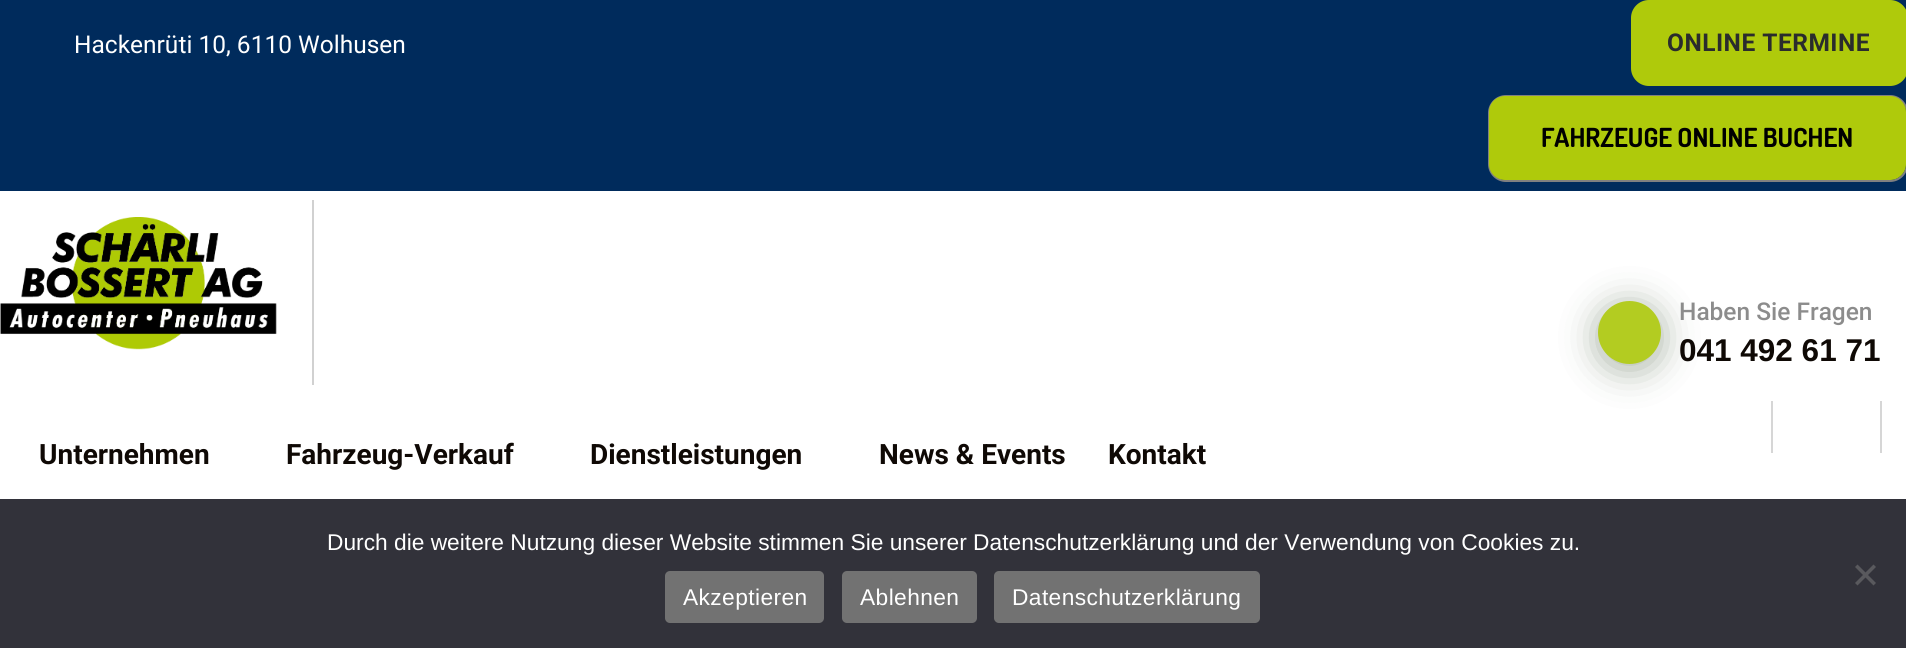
import math
import cairo



def draw_spaced(context, x, y, s, letter, word):
    context.move_to(x, y)
    for ch in s:
        context.show_text(ch)
        context.rel_move_to(letter + word * (ch == ' '), 0)


def rounded_rect(context, x, y, w, h, r):
    context.new_sub_path()
    for i, (u, v) in enumerate([(x + w - r, y + h - r), (x + r, y + h - r), (x + r, y + r), (x + w - r, y + r)]):
        context.arc(u, v, r, i * math.pi / 2, (i + 1) * math.pi / 2)
    context.close_path()


def draw_shadow(context, x, y, w, h, r, blur, alpha):
    context.push_group_with_content(cairo.Content.ALPHA)
    context.set_operator(cairo.Operator.SOURCE)
    for i in range(15, -16, -2):
        e = blur * i / 6
        if min(w, h) + 2 * e > 0:
            context.set_source_rgba(0, 0, 0, alpha * math.erfc((i - 1) / 8.5) / 2)
            rounded_rect(context, x - e, y - e, w + 2 * e, h + 2 * e, max(0, min(r + e + blur * .6, min(w, h) / 2 + e)))
            context.fill()
    context.mask(context.pop_group())


def draw_image(context, path, x, y, w, h):
    context.save()
    context.set_source_surface(cairo.ImageSurface.create_from_png(path), x, y)
    context.rectangle(x, y, w, h)
    context.fill()
    context.restore()


def draw(context):
    context.set_source_rgb(1, 1, 1)
    context.paint()
    context.set_source_rgb(0, 43 / 255, 92 / 255)
    context.rectangle(0, 0, 1906, 191)
    context.fill()
    context.set_source_rgb(175 / 255, 202 / 255, 11 / 255)
    rounded_rect(context, 1632, 1, 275, 84, 17)
    context.fill_preserve()
    context.stroke()
    rounded_rect(context, 1489, 96, 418, 85, 17)
    context.set_source_rgb(128 / 255, 128 / 255, 128 / 255)
    context.stroke()
    context.set_source_rgb(175 / 255, 202 / 255, 11 / 255)
    rounded_rect(context, 1489, 96, 417, 84, 16)
    context.fill()
    context.set_source_rgb(11 / 255, 41 / 255, 0)
    draw_shadow(context, 1598, 306, 63, 63, 31.5, 18.5, 0.36)
    context.set_source_rgb(179 / 255, 204 / 255, 33 / 255)
    context.arc(1629.5, 332.5, 31.5, 0, 2 * math.pi)
    context.fill()
    context.set_source_rgb(214 / 255, 214 / 255, 214 / 255)
    context.rectangle(1880, 401, 2, 52)
    context.fill()
    context.rectangle(1771, 401, 2, 52)
    context.fill()
    context.set_source_rgb(209 / 255, 209 / 255, 209 / 255)
    context.rectangle(312, 200, 2, 185)
    context.fill()
    draw_image(context, "images/1.png", 0, 217, 277, 133)
    context.set_source_rgb(50 / 255, 50 / 255, 58 / 255)
    context.rectangle(0, 499, 1906, 149)
    context.fill()
    context.set_source_rgb(89 / 255, 89 / 255, 93 / 255)
    context.new_path()
    context.move_to(1873.5, 564.5)
    context.line_to(1876, 567)
    context.line_to(1857.5, 585.5)
    context.line_to(1855, 583)
    context.close_path()
    context.fill()
    context.new_path()
    context.move_to(1855, 567)
    context.line_to(1857.5, 564.5)
    context.line_to(1876, 583)
    context.line_to(1873.5, 585.5)
    context.close_path()
    context.fill()
    context.set_source_rgb(114 / 255, 114 / 255, 114 / 255)
    rounded_rect(context, 665, 571, 159, 52, 5)
    context.fill()
    rounded_rect(context, 842, 571, 135, 52, 5)
    context.fill()
    rounded_rect(context, 994, 571, 266, 52, 5)
    context.fill()
    context.select_font_face("Roboto")
    context.set_font_size(24.5)
    context.set_source_rgb(1, 1, 1)
    context.move_to(74, 53)
    context.show_text("Hackenrüti 10, 6110 Wolhusen")
    context.select_font_face("Roboto", cairo.FontSlant.NORMAL, cairo.FontWeight.BOLD)
    context.set_source_rgb(42 / 255, 44 / 255, 45 / 255)
    draw_spaced(context, 1667, 51, "ONLINE TERMINE", 0.5, 0)
    context.select_font_face("Dosis", cairo.FontSlant.NORMAL, cairo.FontWeight.BOLD)
    context.set_font_size(26.25)
    context.set_source_rgb(0, 0, 0)
    context.move_to(1541, 147)
    context.show_text("FAHRZEUGE ONLINE BUCHEN")
    context.select_font_face("Roboto Medium")
    context.set_font_size(24.5)
    context.set_source_rgb(140 / 255, 140 / 255, 140 / 255)
    context.move_to(1679, 320)
    context.show_text("Haben Sie Fragen")
    context.select_font_face("Liberation Sans", cairo.FontSlant.NORMAL, cairo.FontWeight.BOLD)
    context.set_font_size(31.5)
    context.set_source_rgb(15 / 255, 9 / 255, 5 / 255)
    context.move_to(1679, 361)
    context.show_text("041 492 61 71")
    context.select_font_face("Roboto", cairo.FontSlant.NORMAL, cairo.FontWeight.BOLD)
    context.set_font_size(28)
    context.move_to(39, 464)
    context.show_text("Unternehmen")
    context.move_to(286, 464)
    context.show_text("Fahrzeug-Verkauf")
    context.move_to(590, 464)
    context.show_text("Dienstleistungen")
    context.move_to(879, 464)
    context.show_text("News & Events")
    context.move_to(1108, 464)
    context.show_text("Kontakt")
    context.select_font_face("Liberation Sans")
    context.set_font_size(22.75)
    context.set_source_rgb(1, 1, 1)
    context.move_to(327, 550)
    context.show_text("Durch die weitere Nutzung dieser Website stimmen Sie unserer Datenschutzerklärung und der Verwendung von Cookies zu.")
    draw_spaced(context, 683, 605, "Akzeptieren", 0.4, 0)
    draw_spaced(context, 860, 605, "Ablehnen", 0.4, 0)
    draw_spaced(context, 1012, 605, "Datenschutzerklärung", 0.4, 0)


surface = cairo.ImageSurface(cairo.Format.RGB24, 1906, 648)
context = cairo.Context(surface)
options = cairo.FontOptions()
options.set_hint_metrics(cairo.HintMetrics.OFF)
options.set_hint_style(cairo.HintStyle.NONE)
context.set_font_options(options)
context.set_miter_limit(4)
draw(context)
surface.write_to_png("out.png")
